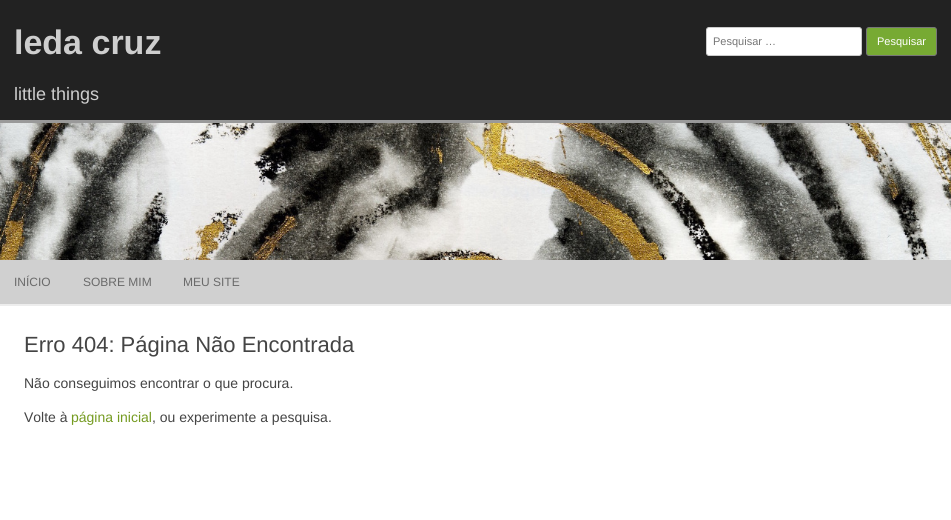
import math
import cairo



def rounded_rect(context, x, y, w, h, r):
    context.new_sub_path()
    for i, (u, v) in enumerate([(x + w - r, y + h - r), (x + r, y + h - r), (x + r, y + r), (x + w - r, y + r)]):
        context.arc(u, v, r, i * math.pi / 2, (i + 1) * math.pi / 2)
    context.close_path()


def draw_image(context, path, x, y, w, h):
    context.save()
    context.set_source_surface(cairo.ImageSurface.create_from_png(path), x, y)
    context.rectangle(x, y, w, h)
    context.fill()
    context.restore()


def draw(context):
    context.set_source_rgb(1, 1, 1)
    context.paint()
    context.set_source_rgb(34 / 255, 34 / 255, 34 / 255)
    context.rectangle(0, 0, 951, 120)
    context.fill()
    context.set_source_rgb(153 / 255, 153 / 255, 153 / 255)
    context.rectangle(0, 120, 951, 3)
    context.fill()
    context.set_source_rgb(1, 1, 1)
    rounded_rect(context, 706.5, 27.5, 155, 28, 2.5)
    context.fill_preserve()
    context.set_source_rgb(204 / 255, 204 / 255, 204 / 255)
    context.set_line_width(1)
    context.stroke()
    context.set_source_rgb(119 / 255, 170 / 255, 51 / 255)
    rounded_rect(context, 866.5, 27.5, 70, 28, 2.5)
    context.fill_preserve()
    context.set_source_rgb(119 / 255, 119 / 255, 119 / 255)
    context.stroke()
    draw_image(context, "images/1.png", 0, 123, 951, 137)
    context.set_source_rgb(208 / 255, 208 / 255, 208 / 255)
    context.rectangle(0, 260, 951, 44)
    context.fill()
    context.set_source_rgb(237 / 255, 237 / 255, 237 / 255)
    context.rectangle(0, 304, 951, 2)
    context.fill()
    context.select_font_face("Liberation Sans", cairo.FontSlant.NORMAL, cairo.FontWeight.BOLD)
    context.set_font_size(34)
    context.set_source_rgb(206 / 255, 206 / 255, 206 / 255)
    context.move_to(14, 54)
    context.show_text("leda cruz")
    context.select_font_face("Liberation Sans")
    context.set_font_size(18)
    context.move_to(14, 100)
    context.show_text("little things")
    context.set_font_size(11)
    context.set_source_rgb(117 / 255, 117 / 255, 117 / 255)
    context.move_to(713, 45)
    context.show_text("Pesquisar …")
    context.set_source_rgb(1, 1, 1)
    context.move_to(877, 45)
    context.show_text("Pesquisar")
    context.set_font_size(12)
    context.set_source_rgb(106 / 255, 106 / 255, 106 / 255)
    context.move_to(14, 286)
    context.show_text("INÍCIO")
    context.move_to(83, 286)
    context.show_text("SOBRE MIM")
    context.move_to(183, 286)
    context.show_text("MEU SITE")
    context.set_font_size(22)
    context.set_source_rgb(68 / 255, 68 / 255, 68 / 255)
    context.move_to(24, 352)
    context.show_text("Erro 404: Página Não Encontrada")
    context.set_font_size(14)
    context.move_to(24, 388)
    context.show_text("Não conseguimos encontrar o que procura.")
    context.move_to(24, 422)
    context.show_text("Volte à")
    context.set_source_rgb(117 / 255, 155 / 255, 33 / 255)
    context.move_to(71, 422)
    context.show_text("página inicial")
    context.set_source_rgb(68 / 255, 68 / 255, 68 / 255)
    context.move_to(152, 422)
    context.show_text(", ou experimente a pesquisa.")


surface = cairo.ImageSurface(cairo.Format.RGB24, 951, 520)
context = cairo.Context(surface)
options = cairo.FontOptions()
options.set_hint_metrics(cairo.HintMetrics.OFF)
options.set_hint_style(cairo.HintStyle.NONE)
context.set_font_options(options)
context.set_miter_limit(4)
draw(context)
surface.write_to_png("out.png")
